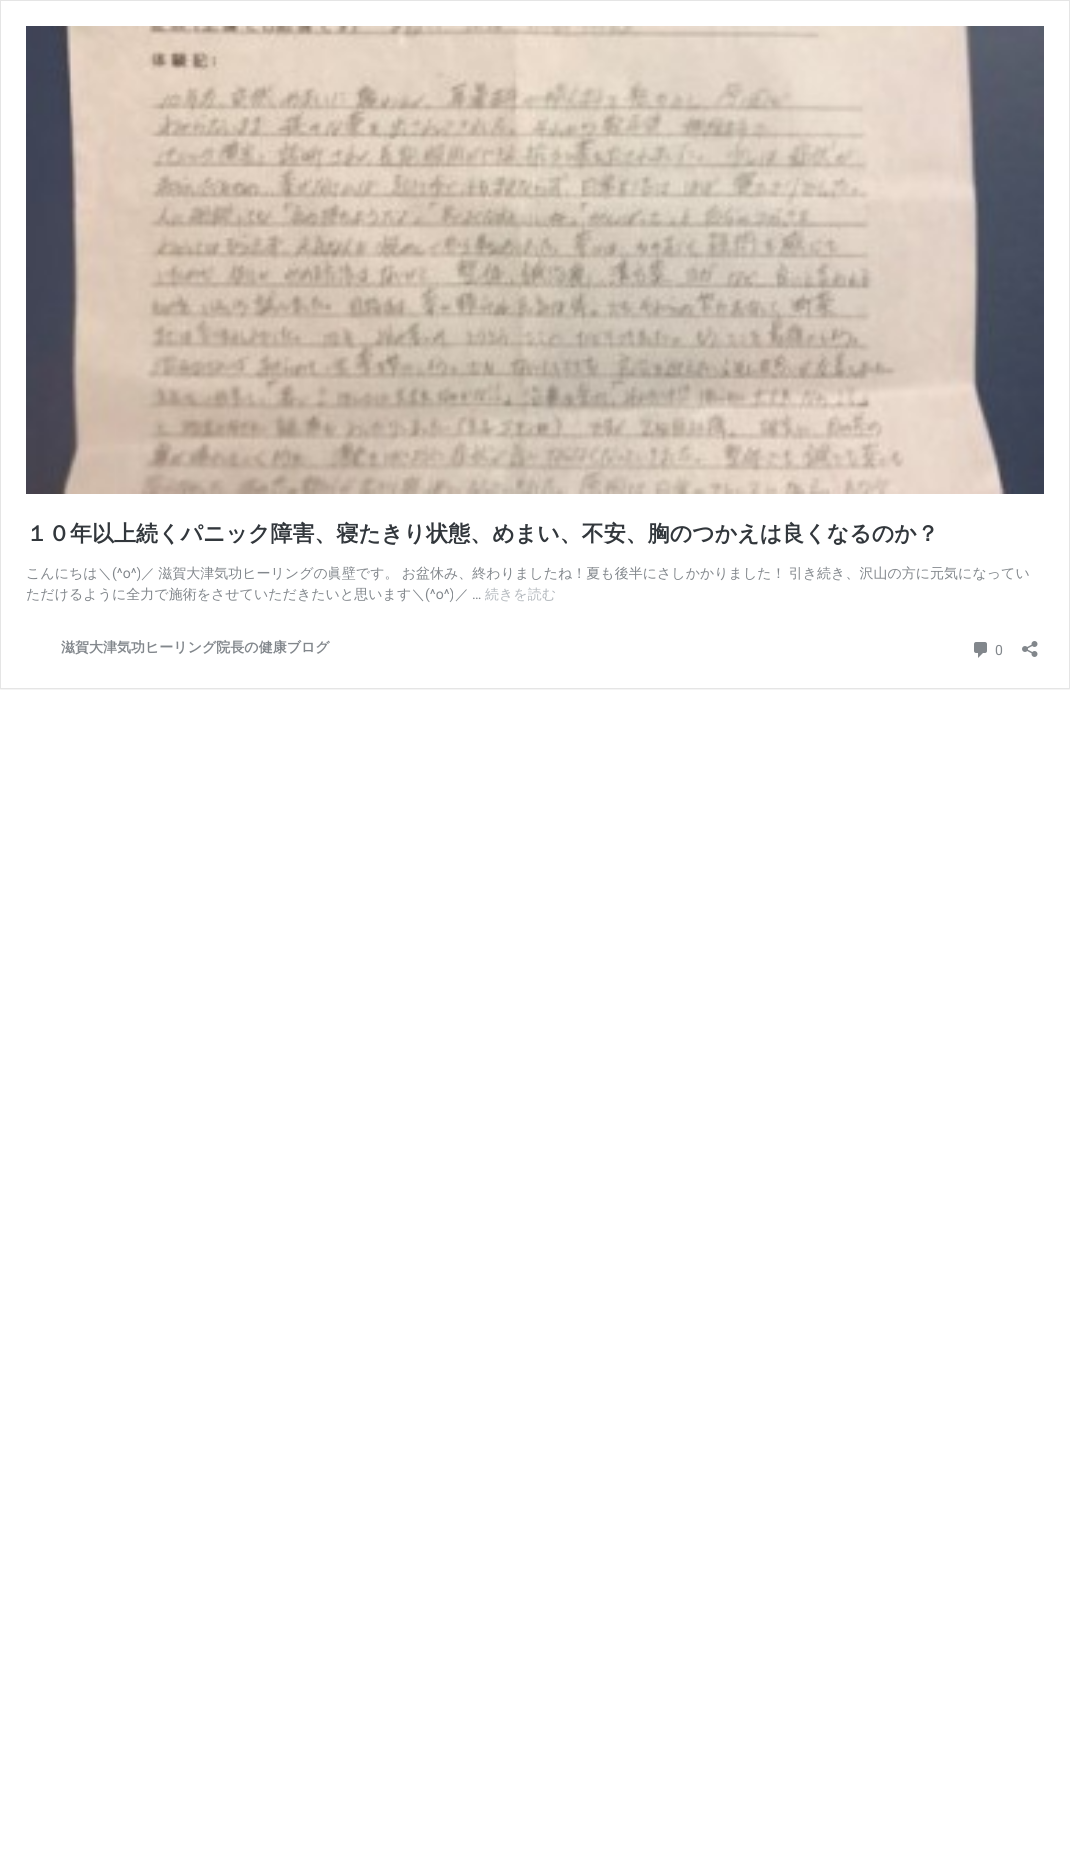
import math
import cairo



def draw_spaced(context, x, y, s, letter, word):
    context.move_to(x, y)
    for ch in s:
        context.show_text(ch)
        context.rel_move_to(letter + word * (ch == ' '), 0)


def rounded_rect(context, x, y, w, h, r):
    context.new_sub_path()
    for i, (u, v) in enumerate([(x + w - r, y + h - r), (x + r, y + h - r), (x + r, y + r), (x + w - r, y + r)]):
        context.arc(u, v, r, i * math.pi / 2, (i + 1) * math.pi / 2)
    context.close_path()


def draw_shadow(context, x, y, w, h, r, blur, alpha):
    context.push_group_with_content(cairo.Content.ALPHA)
    context.set_operator(cairo.Operator.SOURCE)
    for i in range(15, -16, -2):
        e = blur * i / 6
        if min(w, h) + 2 * e > 0:
            context.set_source_rgba(0, 0, 0, alpha * math.erfc((i - 1) / 8.5) / 2)
            rounded_rect(context, x - e, y - e, w + 2 * e, h + 2 * e, max(0, min(r + e + blur * .6, min(w, h) / 2 + e)))
            context.fill()
    context.mask(context.pop_group())


def draw_image(context, path, x, y, w, h):
    context.save()
    context.set_source_surface(cairo.ImageSurface.create_from_png(path), x, y)
    context.rectangle(x, y, w, h)
    context.fill()
    context.restore()


def draw(context):
    context.set_source_rgb(1, 1, 1)
    context.paint()
    context.save()
    context.rectangle(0, 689, 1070, 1)
    context.clip()
    context.set_source_rgb(0, 0, 0)
    draw_shadow(context, 0, 1, 1070, 689, 0, 0.5, 0.05)
    context.restore()
    context.rectangle(0.5, 0.5, 1069, 688)
    context.set_source_rgb(229 / 255, 229 / 255, 229 / 255)
    context.set_line_width(1)
    context.stroke()
    draw_image(context, "images/1.png", 26, 26, 1018, 468)
    draw_image(context, "images/2.png", 974, 642, 13, 16)
    draw_image(context, "images/3.png", 1022, 641, 16, 16)
    context.select_font_face("WenQuanYi Zen Hei", cairo.FontSlant.NORMAL, cairo.FontWeight.BOLD)
    context.set_font_size(22)
    context.set_source_rgb(50 / 255, 55 / 255, 60 / 255)
    context.move_to(26, 541)
    context.show_text("１０年以上続くパニック障害、寝たきり状態、めまい、不安、胸のつかえは良くなるのか？")
    context.select_font_face("WenQuanYi Zen Hei Medium")
    context.set_font_size(14)
    context.set_source_rgb(130 / 255, 135 / 255, 140 / 255)
    context.move_to(26, 578)
    context.show_text("こんにちは＼")
    context.select_font_face("Roboto")
    context.move_to(112, 578)
    context.show_text("(^o^)")
    context.select_font_face("WenQuanYi Zen Hei Medium")
    draw_spaced(context, 141, 578, "／ 滋賀大津気功ヒーリングの眞壁です。 お盆休み、終わりましたね！夏も後半にさしかかりました！ 引き続き、沢山の方に元気になってい", 0, -1)
    context.move_to(26, 599)
    context.show_text("ただけるように全力で施術をさせていただきたいと思います＼")
    context.select_font_face("Roboto")
    context.move_to(425, 599)
    context.show_text("(^o^)")
    context.select_font_face("WenQuanYi Zen Hei Medium")
    context.move_to(455, 599)
    context.show_text("／")
    context.select_font_face("Roboto")
    context.move_to(472, 599)
    context.show_text("…")
    context.select_font_face("WenQuanYi Zen Hei Medium")
    context.set_source_rgb(180 / 255, 185 / 255, 190 / 255)
    context.move_to(485, 599)
    context.show_text("続きを読む")
    context.select_font_face("WenQuanYi Zen Hei", cairo.FontSlant.NORMAL, cairo.FontWeight.BOLD)
    context.set_source_rgb(130 / 255, 135 / 255, 140 / 255)
    context.move_to(61, 652)
    context.show_text("滋賀大津気功ヒーリング院長の健康ブログ")
    context.select_font_face("Roboto")
    context.move_to(995, 655)
    context.show_text("0")


surface = cairo.ImageSurface(cairo.Format.RGB24, 1070, 1849)
context = cairo.Context(surface)
options = cairo.FontOptions()
options.set_hint_metrics(cairo.HintMetrics.OFF)
options.set_hint_style(cairo.HintStyle.NONE)
context.set_font_options(options)
context.set_miter_limit(4)
draw(context)
surface.write_to_png("out.png")
